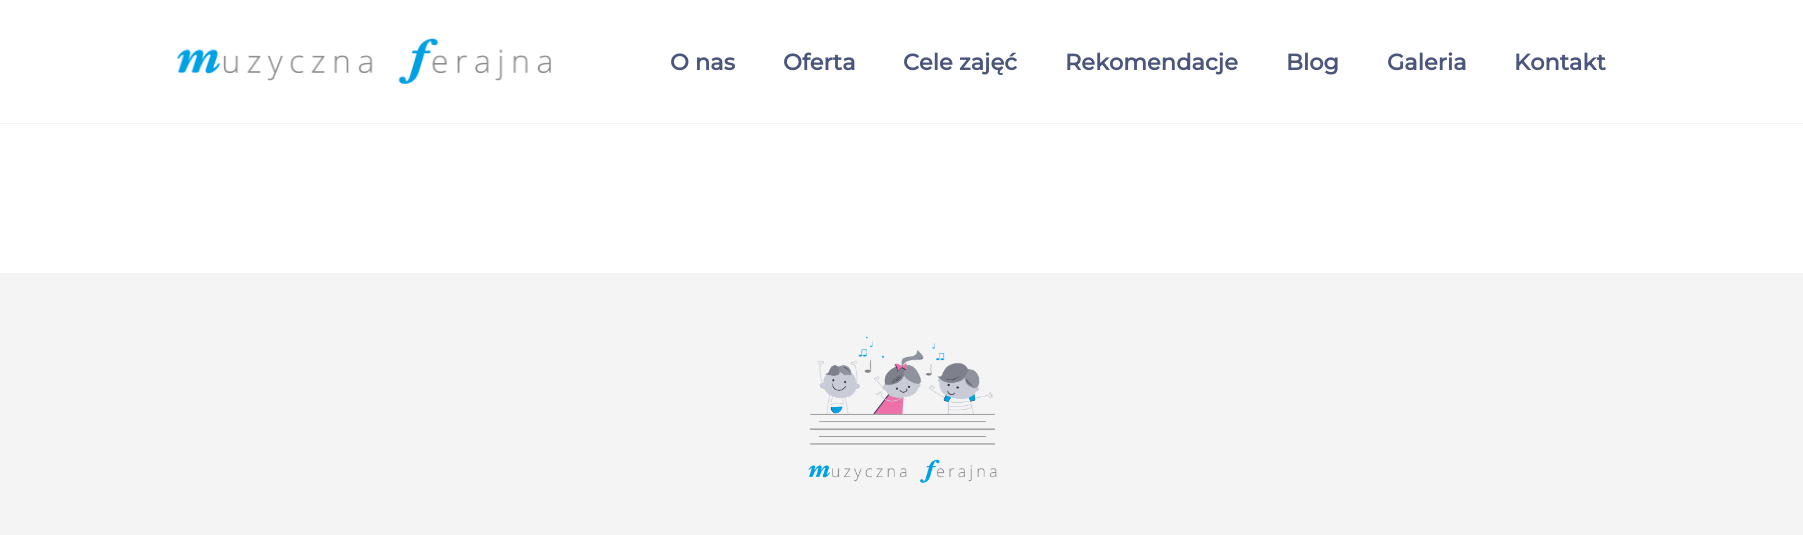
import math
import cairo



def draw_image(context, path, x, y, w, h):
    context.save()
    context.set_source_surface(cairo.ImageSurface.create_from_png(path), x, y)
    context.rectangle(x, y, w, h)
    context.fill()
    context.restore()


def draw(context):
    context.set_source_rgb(1, 1, 1)
    context.paint()
    context.set_source_rgb(242 / 255, 242 / 255, 242 / 255)
    context.rectangle(0, 123, 1803, 1)
    context.fill()
    draw_image(context, "images/1.png", 177, 38, 375, 46)
    context.set_source_rgb(244 / 255, 244 / 255, 244 / 255)
    context.rectangle(0, 273, 1803, 262)
    context.fill()
    draw_image(context, "images/2.png", 808, 336, 189, 147)
    context.select_font_face("Montserrat", cairo.FontSlant.NORMAL, cairo.FontWeight.BOLD)
    context.set_font_size(22.5)
    context.set_source_rgb(75 / 255, 86 / 255, 125 / 255)
    context.move_to(670, 70)
    context.show_text("O nas")
    context.move_to(783, 70)
    context.show_text("Oferta")
    context.move_to(903, 70)
    context.show_text("Cele zajęć")
    context.move_to(1065, 70)
    context.show_text("Rekomendacje")
    context.move_to(1286, 70)
    context.show_text("Blog")
    context.move_to(1387, 70)
    context.show_text("Galeria")
    context.move_to(1514, 70)
    context.show_text("Kontakt")


surface = cairo.ImageSurface(cairo.Format.RGB24, 1803, 535)
context = cairo.Context(surface)
options = cairo.FontOptions()
options.set_hint_metrics(cairo.HintMetrics.OFF)
options.set_hint_style(cairo.HintStyle.NONE)
context.set_font_options(options)
context.set_miter_limit(4)
draw(context)
surface.write_to_png("out.png")
